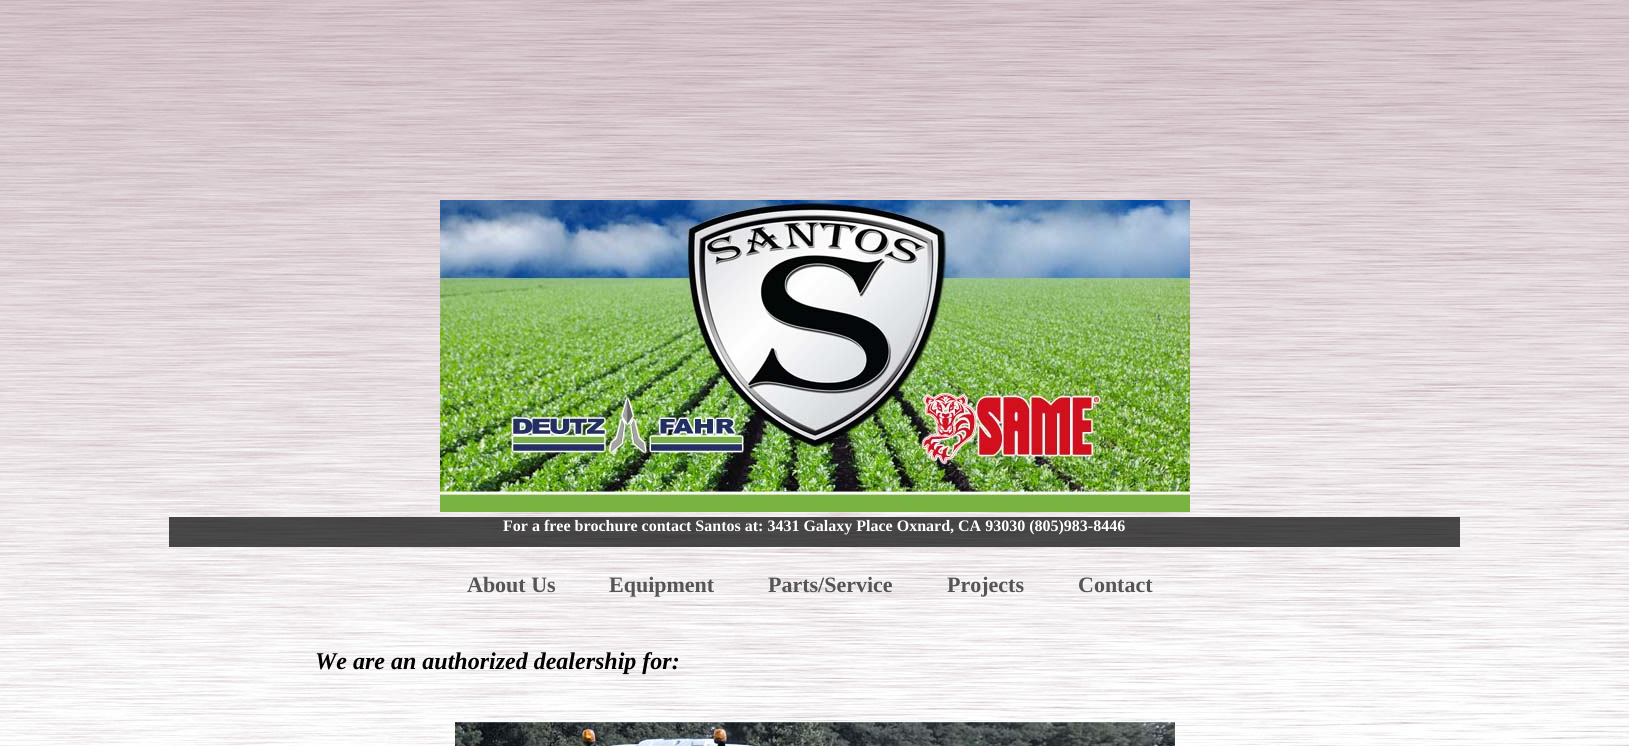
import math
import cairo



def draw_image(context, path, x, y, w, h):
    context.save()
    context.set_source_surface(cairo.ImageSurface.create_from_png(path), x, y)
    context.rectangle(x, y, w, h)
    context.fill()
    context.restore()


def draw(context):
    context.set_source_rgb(1, 1, 1)
    context.paint()
    draw_image(context, "images/1.png", 0, 0, 1629, 746)
    draw_image(context, "images/2.png", 440, 200, 750, 312)
    context.set_source_rgba(0, 0, 0, 0.7)
    context.rectangle(169, 517, 1291, 30)
    context.fill()
    draw_image(context, "images/3.png", 455, 721, 720, 25)
    context.select_font_face("Liberation Serif", cairo.FontSlant.NORMAL, cairo.FontWeight.BOLD)
    context.set_font_size(16)
    context.set_source_rgb(1, 1, 1)
    context.move_to(503, 531)
    context.show_text("For a free brochure contact Santos at: 3431 Galaxy Place Oxnard, CA 93030 (805)983-8446")
    context.set_font_size(22)
    context.set_source_rgb(85 / 255, 85 / 255, 85 / 255)
    context.move_to(467, 592)
    context.show_text("About Us")
    context.move_to(609, 592)
    context.show_text("Equipment")
    context.move_to(768, 592)
    context.show_text("Parts/Service")
    context.move_to(947, 592)
    context.show_text("Projects")
    context.move_to(1078, 592)
    context.show_text("Contact")
    context.select_font_face("Liberation Serif", cairo.FontSlant.ITALIC, cairo.FontWeight.BOLD)
    context.set_font_size(24)
    context.set_source_rgb(0, 0, 0)
    context.move_to(315, 669)
    context.show_text("We are an authorized dealership for:")


surface = cairo.ImageSurface(cairo.Format.RGB24, 1629, 746)
context = cairo.Context(surface)
options = cairo.FontOptions()
options.set_hint_metrics(cairo.HintMetrics.OFF)
options.set_hint_style(cairo.HintStyle.NONE)
context.set_font_options(options)
context.set_miter_limit(4)
draw(context)
surface.write_to_png("out.png")
